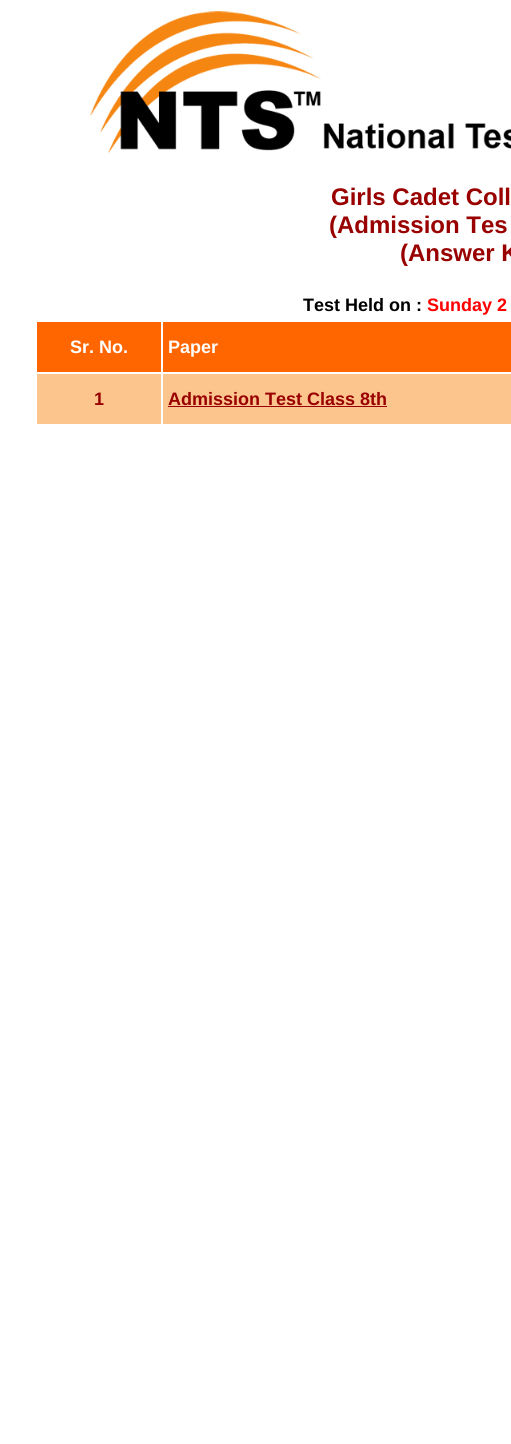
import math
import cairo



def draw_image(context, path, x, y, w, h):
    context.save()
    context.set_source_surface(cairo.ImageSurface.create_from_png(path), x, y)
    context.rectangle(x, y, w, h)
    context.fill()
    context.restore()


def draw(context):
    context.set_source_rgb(1, 1, 1)
    context.paint()
    draw_image(context, "images/1.png", 90, 11, 421, 143)
    context.set_source_rgb(1, 102 / 255, 0)
    context.rectangle(37, 322, 124, 50)
    context.fill()
    context.rectangle(163, 322, 348, 50)
    context.fill()
    context.set_source_rgb(252 / 255, 197 / 255, 141 / 255)
    context.rectangle(37, 374, 124, 50)
    context.fill()
    context.rectangle(163, 374, 348, 50)
    context.fill()
    context.set_source_rgb(153 / 255, 0, 0)
    context.rectangle(168, 406, 219, 1)
    context.fill()
    context.select_font_face("Liberation Sans", cairo.FontSlant.NORMAL, cairo.FontWeight.BOLD)
    context.set_font_size(24)
    context.move_to(331, 205)
    context.show_text("Girls Cadet Coll")
    context.move_to(329, 233)
    context.show_text("(Admission Tes")
    context.move_to(400, 261)
    context.show_text("(Answer K")
    context.set_font_size(18)
    context.set_source_rgb(0, 0, 0)
    context.move_to(303, 311)
    context.show_text("Test Held on :")
    context.set_source_rgb(1, 0, 0)
    context.move_to(427, 311)
    context.show_text("Sunday 2")
    context.set_source_rgb(1, 1, 1)
    context.move_to(70, 353)
    context.show_text("Sr. No.")
    context.move_to(168, 353)
    context.show_text("Paper")
    context.set_source_rgb(153 / 255, 0, 0)
    context.move_to(94, 405)
    context.show_text("1")
    context.move_to(168, 405)
    context.show_text("Admission Test Class 8th")


surface = cairo.ImageSurface(cairo.Format.RGB24, 511, 1444)
context = cairo.Context(surface)
options = cairo.FontOptions()
options.set_hint_metrics(cairo.HintMetrics.OFF)
options.set_hint_style(cairo.HintStyle.NONE)
context.set_font_options(options)
context.set_miter_limit(4)
draw(context)
surface.write_to_png("out.png")
